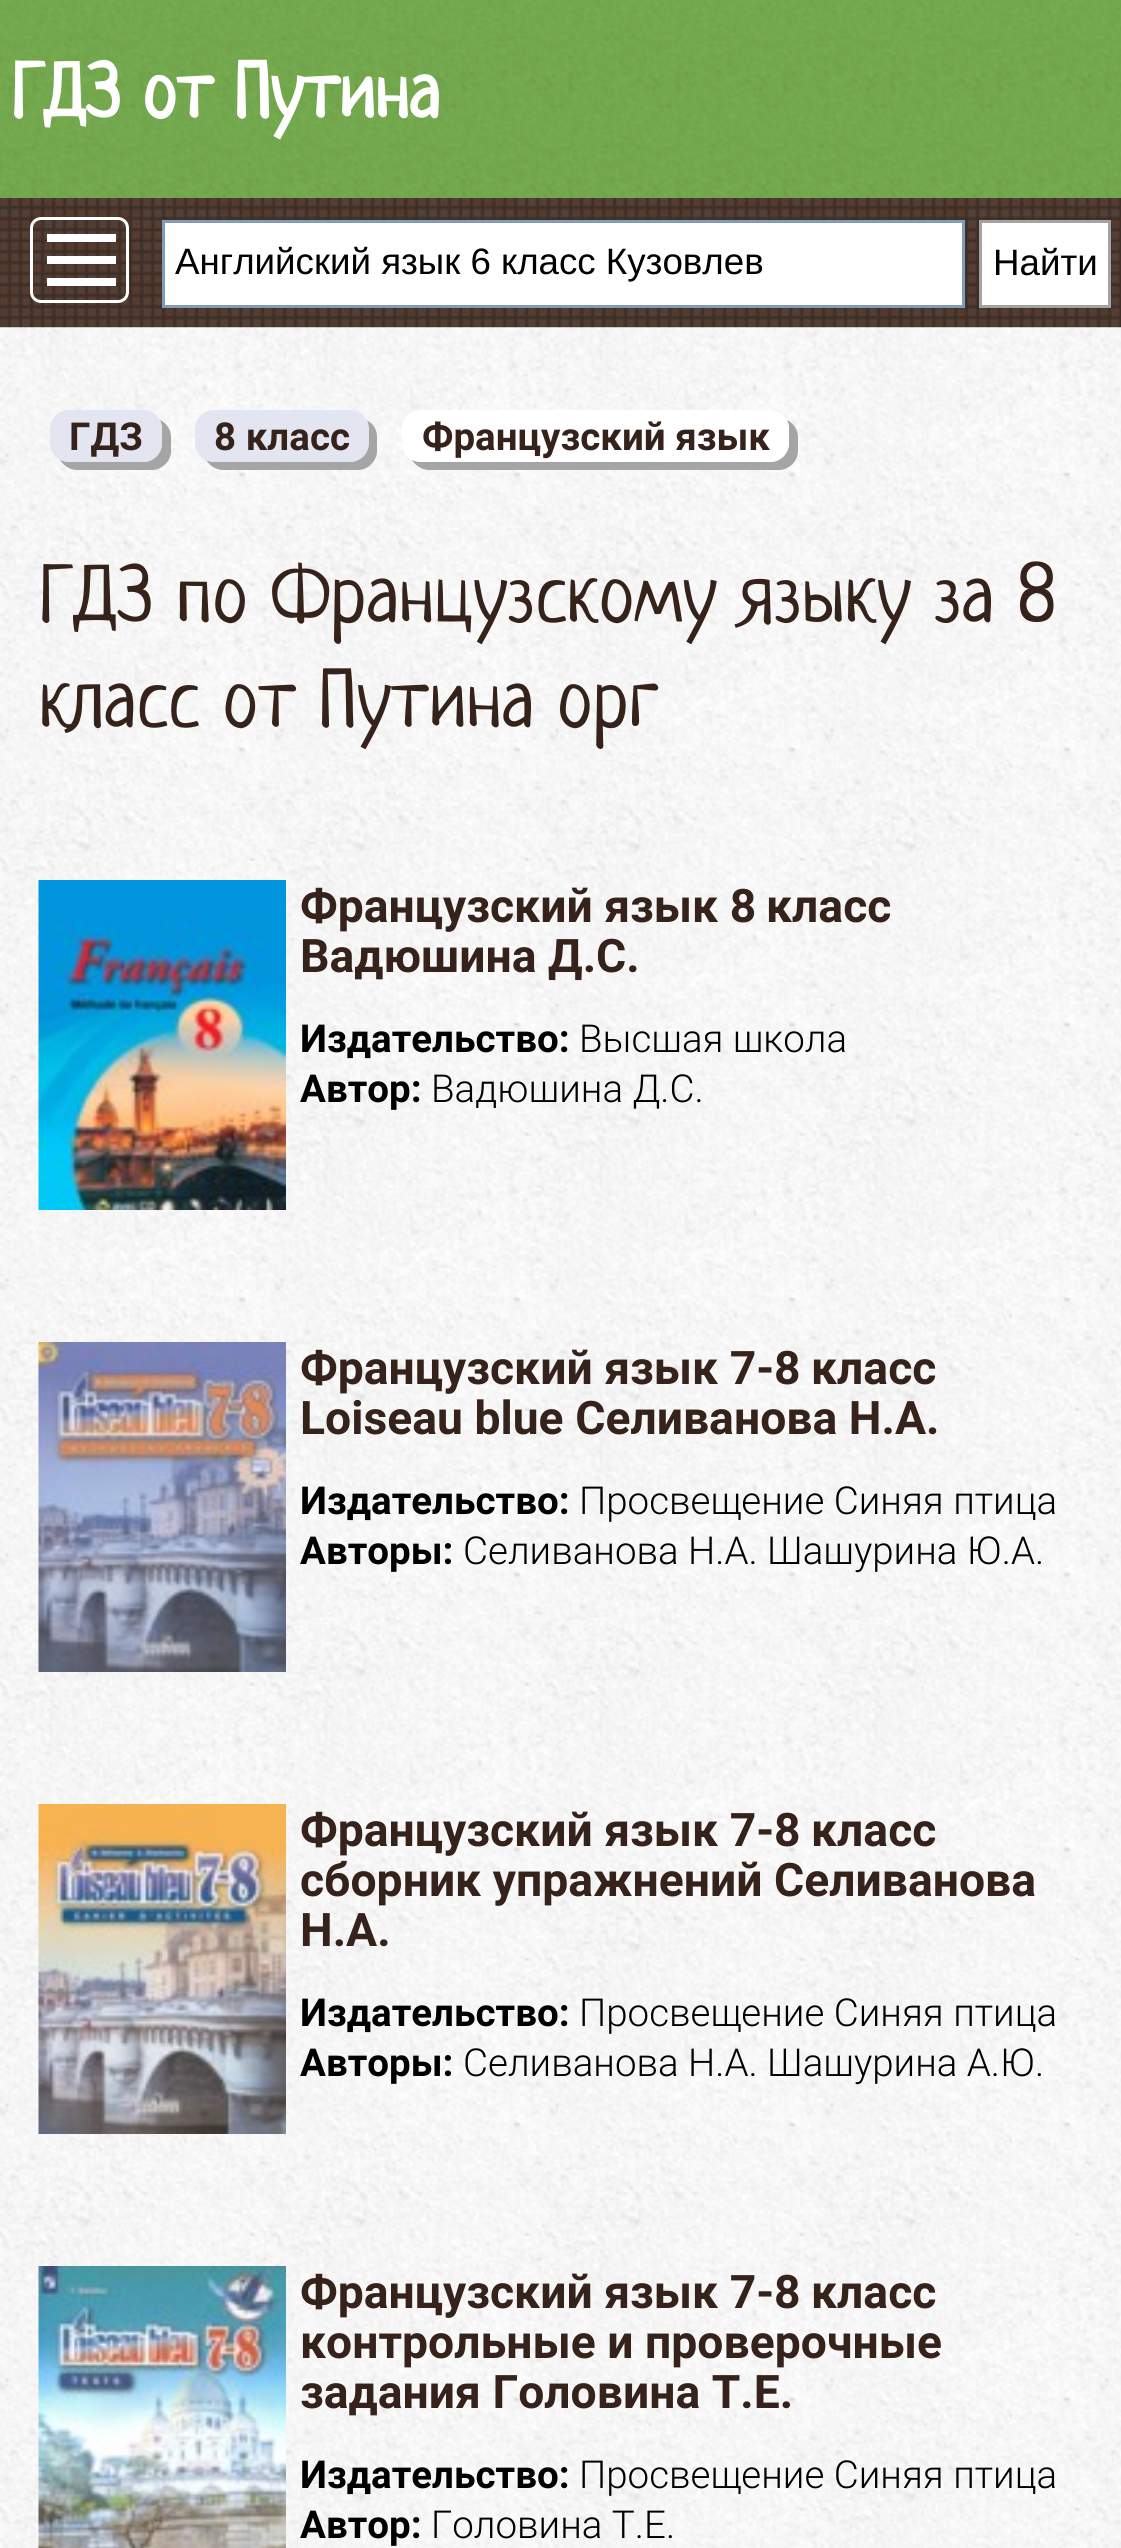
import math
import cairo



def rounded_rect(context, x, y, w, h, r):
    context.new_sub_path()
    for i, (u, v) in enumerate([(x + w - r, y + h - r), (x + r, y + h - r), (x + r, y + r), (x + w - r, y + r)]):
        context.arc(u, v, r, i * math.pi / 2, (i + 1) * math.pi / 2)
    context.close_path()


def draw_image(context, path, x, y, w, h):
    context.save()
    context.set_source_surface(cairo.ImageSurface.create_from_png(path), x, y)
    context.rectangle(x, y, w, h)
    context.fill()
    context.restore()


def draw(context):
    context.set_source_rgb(1, 1, 1)
    context.paint()
    draw_image(context, "images/1.png", 0, 327, 1121, 2221)
    draw_image(context, "images/2.png", 0, 0, 1121, 328)
    context.set_source_rgb(84 / 255, 59 / 255, 47 / 255)
    context.rectangle(0, 198, 1121, 129)
    context.fill()
    draw_image(context, "images/3.png", 0, 198, 1121, 130)
    rounded_rect(context, 31.5, 218.5, 96, 83, 9.5)
    context.set_source_rgb(1, 1, 1)
    context.set_line_width(3)
    context.stroke()
    context.rectangle(47, 234, 69, 8)
    context.fill()
    context.rectangle(47, 256, 69, 8)
    context.fill()
    context.rectangle(47, 278, 69, 8)
    context.fill()
    context.rectangle(163.5, 221.5, 800, 85)
    context.fill_preserve()
    context.set_source_rgb(127 / 255, 157 / 255, 185 / 255)
    context.stroke()
    context.set_source_rgb(1, 1, 1)
    context.rectangle(980.5, 221.5, 129, 85)
    context.fill_preserve()
    context.set_source_rgb(163 / 255, 163 / 255, 163 / 255)
    context.stroke()
    context.set_source_rgb(165 / 255, 165 / 255, 166 / 255)
    context.new_path()
    context.move_to(60, 460)
    context.curve_to(64, 466, 70, 470, 77, 470)
    context.line_to(152, 470)
    context.curve_to(162, 470, 171, 461, 171, 451)
    context.line_to(171, 437)
    context.curve_to(171, 429, 166, 423, 160, 420)
    context.curve_to(161, 422, 162, 426, 162, 429)
    context.line_to(162, 443)
    context.curve_to(162, 453, 154, 462, 143, 462)
    context.line_to(69, 462)
    context.curve_to(66, 462, 63, 461, 60, 460)
    context.close_path()
    context.fill()
    context.set_source_rgb(227 / 255, 230 / 255, 241 / 255)
    rounded_rect(context, 50, 410, 112, 52, 19)
    context.fill()
    context.set_source_rgb(165 / 255, 165 / 255, 166 / 255)
    context.new_path()
    context.move_to(206, 460)
    context.curve_to(210, 466, 216, 470, 223, 470)
    context.line_to(358, 470)
    context.curve_to(368, 470, 377, 461, 377, 451)
    context.line_to(377, 437)
    context.curve_to(377, 429, 373, 423, 366, 420)
    context.curve_to(368, 423, 368, 426, 368, 429)
    context.line_to(368, 443)
    context.curve_to(368, 453, 360, 462, 349, 462)
    context.line_to(214, 462)
    context.curve_to(212, 462, 209, 461, 206, 460)
    context.close_path()
    context.fill()
    context.set_source_rgb(227 / 255, 230 / 255, 241 / 255)
    rounded_rect(context, 195, 410, 174, 52, 19)
    context.fill()
    context.set_source_rgb(165 / 255, 165 / 255, 166 / 255)
    context.new_path()
    context.move_to(412, 460)
    context.curve_to(416, 466, 422, 470, 429, 470)
    context.line_to(779, 470)
    context.curve_to(789, 470, 798, 461, 798, 451)
    context.line_to(798, 437)
    context.curve_to(798, 429, 793, 423, 787, 420)
    context.curve_to(788, 422, 789, 426, 789, 429)
    context.line_to(789, 443)
    context.curve_to(789, 453, 781, 462, 770, 462)
    context.line_to(421, 462)
    context.curve_to(418, 462, 415, 461, 412, 460)
    context.close_path()
    context.fill()
    context.set_source_rgb(1, 1, 1)
    rounded_rect(context, 402, 410, 387, 52, 19)
    context.fill()
    draw_image(context, "images/4.png", 38, 880, 248, 330)
    draw_image(context, "images/5.png", 38, 1342, 248, 330)
    draw_image(context, "images/6.png", 38, 1804, 248, 330)
    draw_image(context, "images/7.png", 38, 2266, 248, 282)
    context.select_font_face("Neucha", cairo.FontSlant.NORMAL, cairo.FontWeight.BOLD)
    context.set_font_size(77)
    context.move_to(11, 117)
    context.show_text("ГДЗ от Путина")
    context.select_font_face("Liberation Sans")
    context.set_font_size(36.7)
    context.set_source_rgb(0, 0, 0)
    context.move_to(175, 274)
    context.show_text("Английский язык 6 класс Кузовлев")
    context.move_to(993, 275)
    context.show_text("Найти")
    context.select_font_face("Roboto", cairo.FontSlant.NORMAL, cairo.FontWeight.BOLD)
    context.set_font_size(38.5)
    context.set_source_rgb(53 / 255, 34 / 255, 26 / 255)
    context.move_to(69, 450)
    context.show_text("ГДЗ")
    context.move_to(214, 450)
    context.show_text("8 класс")
    context.move_to(422, 450)
    context.show_text("Французский язык")
    context.select_font_face("Neucha")
    context.set_font_size(80.8)
    context.move_to(39, 621)
    context.show_text("ГДЗ по Французскому языку за 8")
    context.move_to(39, 726)
    context.show_text("класс от Путина орг")
    context.select_font_face("Roboto", cairo.FontSlant.NORMAL, cairo.FontWeight.BOLD)
    context.set_font_size(46.25)
    context.move_to(300, 922)
    context.show_text("Французский язык 8")
    context.move_to(766, 922)
    context.show_text("класс")
    context.move_to(300, 972)
    context.show_text("Вадюшина Д.С.")
    context.set_font_size(38.5)
    context.set_source_rgb(0, 0, 0)
    context.move_to(300, 1052)
    context.show_text("Издательство:")
    context.select_font_face("Roboto Light")
    context.move_to(579, 1052)
    context.show_text("Высшая школа")
    context.select_font_face("Roboto", cairo.FontSlant.NORMAL, cairo.FontWeight.BOLD)
    context.move_to(300, 1102)
    context.show_text("Автор:")
    context.select_font_face("Roboto Light")
    context.move_to(431, 1102)
    context.show_text("Вадюшина Д.С.")
    context.select_font_face("Roboto", cairo.FontSlant.NORMAL, cairo.FontWeight.BOLD)
    context.set_font_size(46.25)
    context.set_source_rgb(53 / 255, 34 / 255, 26 / 255)
    context.move_to(300, 1384)
    context.show_text("Французский язык 7-8")
    context.move_to(811, 1384)
    context.show_text("класс")
    context.move_to(300, 1434)
    context.show_text("Loiseau blue Селиванова Н.А.")
    context.set_font_size(38.5)
    context.set_source_rgb(0, 0, 0)
    context.move_to(300, 1514)
    context.show_text("Издательство:")
    context.select_font_face("Roboto Light")
    context.move_to(579, 1514)
    context.show_text("Просвещение Синяя птица")
    context.select_font_face("Roboto", cairo.FontSlant.NORMAL, cairo.FontWeight.BOLD)
    context.move_to(300, 1564)
    context.show_text("Авторы:")
    context.select_font_face("Roboto Light")
    context.move_to(463, 1564)
    context.show_text("Селиванова Н.А. Шашурина Ю.А.")
    context.select_font_face("Roboto", cairo.FontSlant.NORMAL, cairo.FontWeight.BOLD)
    context.set_font_size(46.25)
    context.set_source_rgb(53 / 255, 34 / 255, 26 / 255)
    context.move_to(300, 1846)
    context.show_text("Французский язык 7-8")
    context.move_to(811, 1846)
    context.show_text("класс")
    context.move_to(300, 1896)
    context.show_text("сборник упражнений Селиванова")
    context.move_to(300, 1946)
    context.show_text("Н.А.")
    context.set_font_size(38.5)
    context.set_source_rgb(0, 0, 0)
    context.move_to(300, 2026)
    context.show_text("Издательство:")
    context.select_font_face("Roboto Light")
    context.move_to(579, 2026)
    context.show_text("Просвещение Синяя птица")
    context.select_font_face("Roboto", cairo.FontSlant.NORMAL, cairo.FontWeight.BOLD)
    context.move_to(300, 2076)
    context.show_text("Авторы:")
    context.select_font_face("Roboto Light")
    context.move_to(463, 2076)
    context.show_text("Селиванова Н.А. Шашурина А.Ю.")
    context.select_font_face("Roboto", cairo.FontSlant.NORMAL, cairo.FontWeight.BOLD)
    context.set_font_size(46.25)
    context.set_source_rgb(53 / 255, 34 / 255, 26 / 255)
    context.move_to(300, 2308)
    context.show_text("Французский язык 7-8")
    context.move_to(811, 2308)
    context.show_text("класс")
    context.move_to(300, 2358)
    context.show_text("контрольные и проверочные")
    context.move_to(300, 2408)
    context.show_text("задания Головина Т.Е.")
    context.set_font_size(38.5)
    context.set_source_rgb(0, 0, 0)
    context.move_to(300, 2488)
    context.show_text("Издательство:")
    context.select_font_face("Roboto Light")
    context.move_to(579, 2488)
    context.show_text("Просвещение Синяя птица")
    context.select_font_face("Roboto", cairo.FontSlant.NORMAL, cairo.FontWeight.BOLD)
    context.move_to(300, 2538)
    context.show_text("Автор:")
    context.select_font_face("Roboto Light")
    context.move_to(431, 2538)
    context.show_text("Головина Т.Е.")


surface = cairo.ImageSurface(cairo.Format.RGB24, 1121, 2548)
context = cairo.Context(surface)
options = cairo.FontOptions()
options.set_hint_metrics(cairo.HintMetrics.OFF)
options.set_hint_style(cairo.HintStyle.NONE)
context.set_font_options(options)
context.set_miter_limit(4)
draw(context)
surface.write_to_png("out.png")
